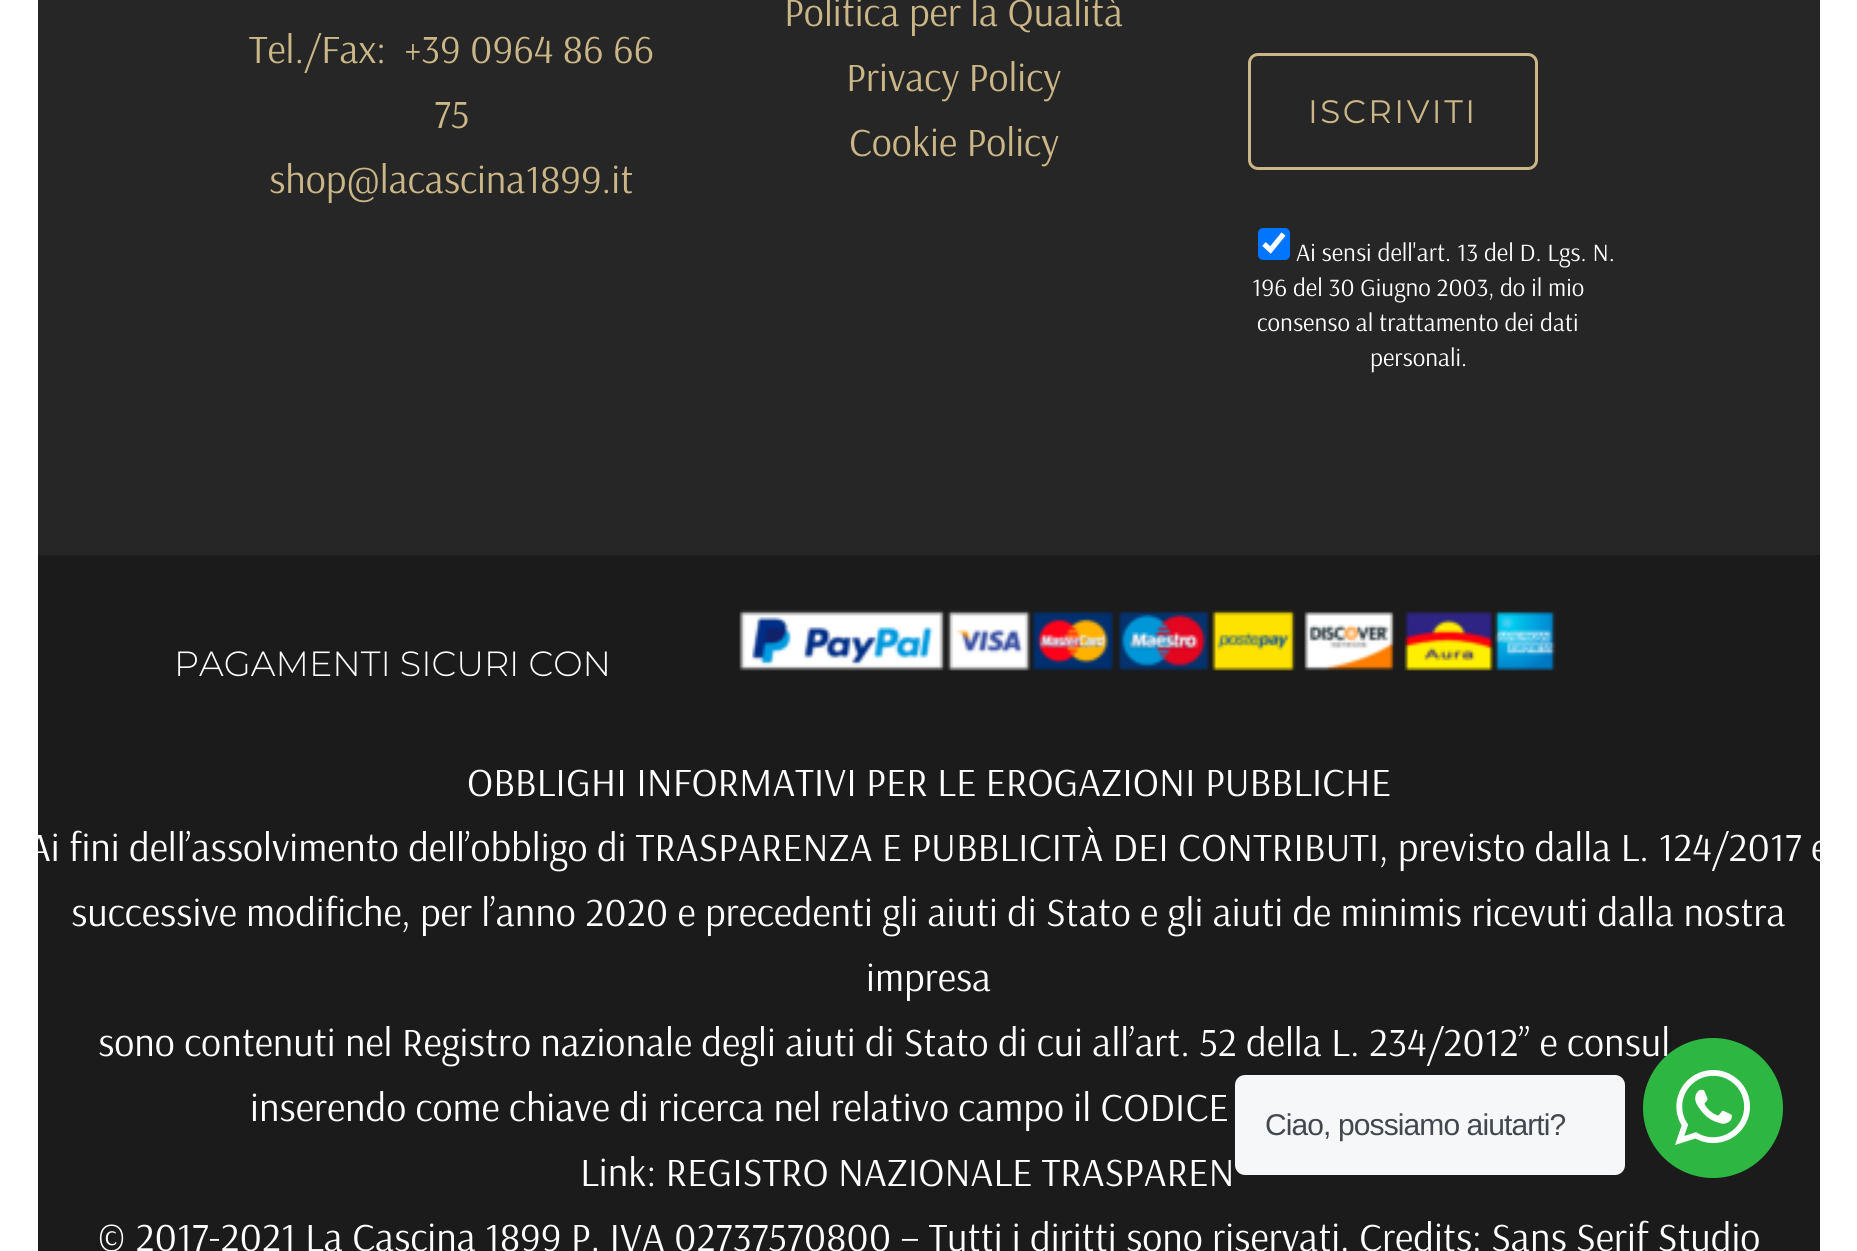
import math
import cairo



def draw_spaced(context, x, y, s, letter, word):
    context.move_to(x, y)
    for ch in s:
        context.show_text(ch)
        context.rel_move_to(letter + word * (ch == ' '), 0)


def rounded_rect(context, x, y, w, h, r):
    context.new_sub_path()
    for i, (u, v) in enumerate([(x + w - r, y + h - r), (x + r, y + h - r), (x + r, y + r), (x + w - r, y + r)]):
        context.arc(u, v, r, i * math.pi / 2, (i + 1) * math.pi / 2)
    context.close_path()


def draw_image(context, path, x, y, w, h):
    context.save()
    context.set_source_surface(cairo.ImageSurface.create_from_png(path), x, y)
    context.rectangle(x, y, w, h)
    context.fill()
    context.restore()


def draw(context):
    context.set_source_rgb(27 / 255, 27 / 255, 27 / 255)
    context.paint()
    context.set_source_rgb(1, 1, 1)
    context.rectangle(0, 0, 38, 1251)
    context.fill()
    context.rectangle(1820, 0, 37, 1251)
    context.fill()
    context.set_source_rgb(38 / 255, 38 / 255, 38 / 255)
    context.rectangle(38, 0, 1782, 555)
    context.fill()
    rounded_rect(context, 1249.5, 54.5, 287, 114, 8.5)
    context.set_source_rgb(202 / 255, 182 / 255, 134 / 255)
    context.set_line_width(3)
    context.stroke()
    context.set_source_rgb(0, 117 / 255, 1)
    rounded_rect(context, 1258, 228, 32, 32, 5)
    context.fill()
    context.new_path()
    context.move_to(1264, 244)
    context.line_to(1270.5, 250)
    context.line_to(1283.5, 234)
    context.set_source_rgb(1, 1, 1)
    context.set_line_width(5.2)
    context.stroke()
    draw_image(context, "images/1.png", 739, 609, 817, 62)
    context.set_source_rgb(245 / 255, 247 / 255, 249 / 255)
    rounded_rect(context, 1235, 1075, 390, 100, 10)
    context.fill()
    context.select_font_face("Arsenal")
    context.set_font_size(40)
    context.set_source_rgb(202 / 255, 182 / 255, 134 / 255)
    context.move_to(249, 63)
    context.show_text("Tel./Fax:  +39 0964 86 66")
    context.move_to(434, 128)
    context.show_text("75")
    context.move_to(269, 193)
    context.show_text("shop@lacascina1899.it")
    context.move_to(784, 26)
    context.show_text("Politica per la Qualità")
    context.move_to(846, 91)
    context.show_text("Privacy Policy")
    context.move_to(849, 156)
    context.show_text("Cookie Policy")
    context.select_font_face("Montserrat")
    context.set_font_size(32.5)
    draw_spaced(context, 1308, 123, "ISCRIVITI", 2.5, 0)
    context.select_font_face("Arsenal")
    context.set_font_size(25)
    context.set_source_rgb(1, 1, 1)
    context.move_to(1296, 261)
    context.show_text("Ai sensi dell'art. 13 del D. Lgs. N.")
    context.move_to(1252, 296)
    context.show_text("196 del 30 Giugno 2003, do il mio")
    context.move_to(1257, 331)
    context.show_text("consenso al trattamento dei dati")
    context.move_to(1370, 366)
    context.show_text("personali.")
    context.select_font_face("Montserrat Light")
    context.set_font_size(35)
    context.move_to(174, 676)
    context.show_text("PAGAMENTI SICURI CON")
    context.select_font_face("Arsenal")
    context.set_font_size(40)
    context.move_to(467, 796)
    context.show_text("OBBLIGHI INFORMATIVI PER LE EROGAZIONI PUBBLICHE")
    context.move_to(28, 861)
    context.show_text("Ai fini dell’assolvimento dell’obbligo di TRASPARENZA E PUBBLICITÀ DEI CONTRIBUTI, previsto dalla L. 124/2017 e")
    context.move_to(71, 926)
    context.show_text("successive modifiche, per l’anno 2020 e precedenti gli aiuti di Stato e gli aiuti de minimis ricevuti dalla nostra")
    context.move_to(866, 991)
    context.show_text("impresa")
    context.move_to(98, 1056)
    context.show_text("sono contenuti nel Registro nazionale degli aiuti di Stato di cui all’art. 52 della L. 234/2012” e consul")
    context.move_to(250, 1121)
    context.show_text("inserendo come chiave di ricerca nel relativo campo il CODICE")
    context.move_to(580, 1186)
    context.show_text("Link: REGISTRO NAZIONALE TRASPAREN")
    context.move_to(97, 1251)
    context.show_text("© 2017-2021 La Cascina 1899 P. IVA 02737570800 – Tutti i diritti sono riservati. Credits: Sans Serif Studio")
    context.select_font_face("Liberation Sans")
    context.set_font_size(30)
    context.set_source_rgb(67 / 255, 71 / 255, 78 / 255)
    draw_spaced(context, 1265, 1135, "Ciao, possiamo aiutarti?", -0.9, 0)
    context.set_source_rgb(45 / 255, 183 / 255, 66 / 255)
    context.new_path()
    context.arc(1713, 1108, 70, 0, 2 * math.pi)
    context.fill()
    draw_image(context, "images/2.png", 1675, 1070, 75, 75)


surface = cairo.ImageSurface(cairo.Format.RGB24, 1857, 1251)
context = cairo.Context(surface)
options = cairo.FontOptions()
options.set_hint_metrics(cairo.HintMetrics.OFF)
options.set_hint_style(cairo.HintStyle.NONE)
context.set_font_options(options)
context.set_miter_limit(4)
draw(context)
surface.write_to_png("out.png")
